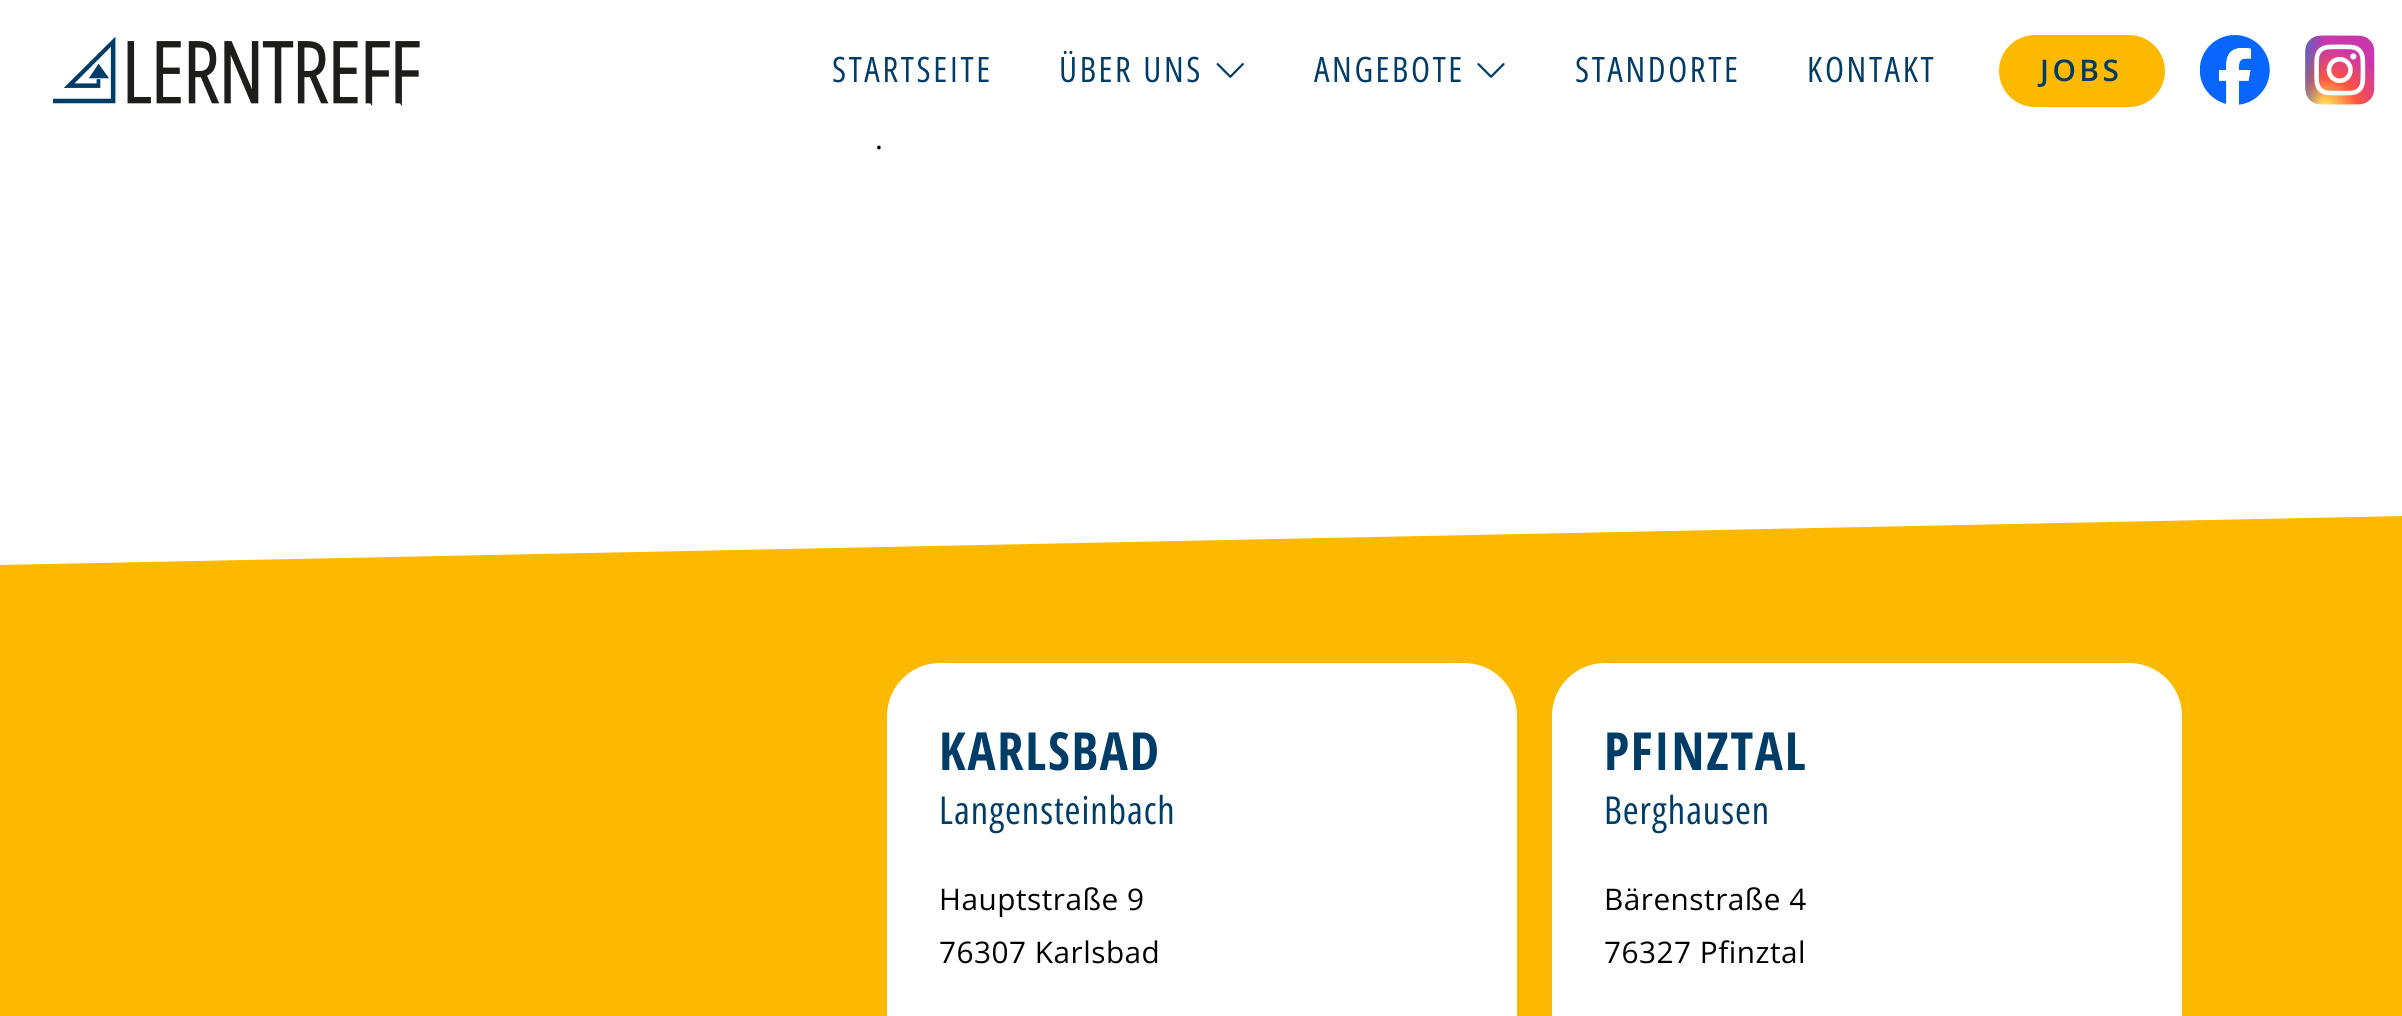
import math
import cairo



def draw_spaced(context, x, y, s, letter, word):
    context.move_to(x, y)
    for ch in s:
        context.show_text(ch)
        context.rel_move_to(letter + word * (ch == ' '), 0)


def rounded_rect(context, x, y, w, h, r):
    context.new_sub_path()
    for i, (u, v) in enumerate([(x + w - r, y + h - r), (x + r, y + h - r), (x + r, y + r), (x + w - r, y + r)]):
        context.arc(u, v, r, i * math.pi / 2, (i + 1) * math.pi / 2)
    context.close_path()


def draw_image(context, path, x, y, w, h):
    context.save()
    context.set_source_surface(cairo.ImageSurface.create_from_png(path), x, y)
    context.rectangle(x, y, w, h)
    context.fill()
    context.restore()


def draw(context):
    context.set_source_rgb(1, 1, 1)
    context.paint()
    draw_image(context, "images/1.png", 53, 36, 367, 70)
    draw_image(context, "images/2.png", 1216, 63, 28, 15)
    draw_image(context, "images/3.png", 1477, 63, 28, 15)
    context.set_source_rgb(252 / 255, 185 / 255, 0)
    rounded_rect(context, 1999, 35, 166, 72, 36)
    context.fill()
    draw_image(context, "images/4.png", 2200, 35, 70, 70)
    draw_image(context, "images/5.png", 2305, 35, 70, 70)
    context.rectangle(0, 516, 2402, 500)
    context.fill()
    context.set_source_rgb(1, 1, 1)
    context.new_path()
    context.move_to(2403, 516)
    context.line_to(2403, 513)
    context.line_to(-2, 513)
    context.line_to(-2, 565)
    context.close_path()
    context.fill()
    rounded_rect(context, 887, 663, 630, 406, 53)
    context.fill()
    rounded_rect(context, 1552, 663, 630, 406, 53)
    context.fill()
    context.select_font_face("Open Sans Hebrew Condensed")
    context.set_font_size(35)
    context.set_source_rgb(0, 60 / 255, 104 / 255)
    draw_spaced(context, 832, 82, "STARTSEITE", 2.6, 0)
    draw_spaced(context, 1059, 82, "ÜBER UNS", 2.6, 0)
    draw_spaced(context, 1314, 82, "ANGEBOTE", 2.6, 0)
    draw_spaced(context, 1575, 82, "STANDORTE", 2.6, 0)
    draw_spaced(context, 1807, 82, "KONTAKT", 2.6, 0)
    context.select_font_face("Open Sans SemiBold")
    context.set_font_size(29.75)
    draw_spaced(context, 2040, 81, "JOBS", 3.5, 0)
    context.select_font_face("Open Sans")
    context.set_source_rgb(0, 0, 0)
    draw_spaced(context, 875, 149, ".", 0.5, 0)
    context.select_font_face("Open Sans Hebrew Condensed", cairo.FontSlant.NORMAL, cairo.FontWeight.BOLD)
    context.set_font_size(52.5)
    context.set_source_rgb(0, 60 / 255, 104 / 255)
    draw_spaced(context, 939, 770, "KARLSBAD", 1.75, 0)
    context.select_font_face("Open Sans Hebrew Condensed")
    context.set_font_size(38.5)
    draw_spaced(context, 939, 824, "Langensteinbach", 0.9, 0)
    context.select_font_face("Open Sans")
    context.set_font_size(29.75)
    context.set_source_rgb(0, 0, 0)
    draw_spaced(context, 939, 910, "Hauptstraße 9", 0.5, 0)
    draw_spaced(context, 939, 963, "76307 Karlsbad", 0.5, 0)
    context.select_font_face("Open Sans Hebrew Condensed", cairo.FontSlant.NORMAL, cairo.FontWeight.BOLD)
    context.set_font_size(52.5)
    context.set_source_rgb(0, 60 / 255, 104 / 255)
    draw_spaced(context, 1604, 770, "PFINZTAL", 1.75, 0)
    context.select_font_face("Open Sans Hebrew Condensed")
    context.set_font_size(38.5)
    draw_spaced(context, 1604, 824, "Berghausen", 0.9, 0)
    context.select_font_face("Open Sans")
    context.set_font_size(29.75)
    context.set_source_rgb(0, 0, 0)
    draw_spaced(context, 1604, 910, "Bärenstraße 4", 0.5, 0)
    draw_spaced(context, 1604, 963, "76327 Pfinztal", 0.5, 0)


surface = cairo.ImageSurface(cairo.Format.RGB24, 2402, 1016)
context = cairo.Context(surface)
options = cairo.FontOptions()
options.set_hint_metrics(cairo.HintMetrics.OFF)
options.set_hint_style(cairo.HintStyle.NONE)
context.set_font_options(options)
context.set_miter_limit(4)
draw(context)
surface.write_to_png("out.png")
